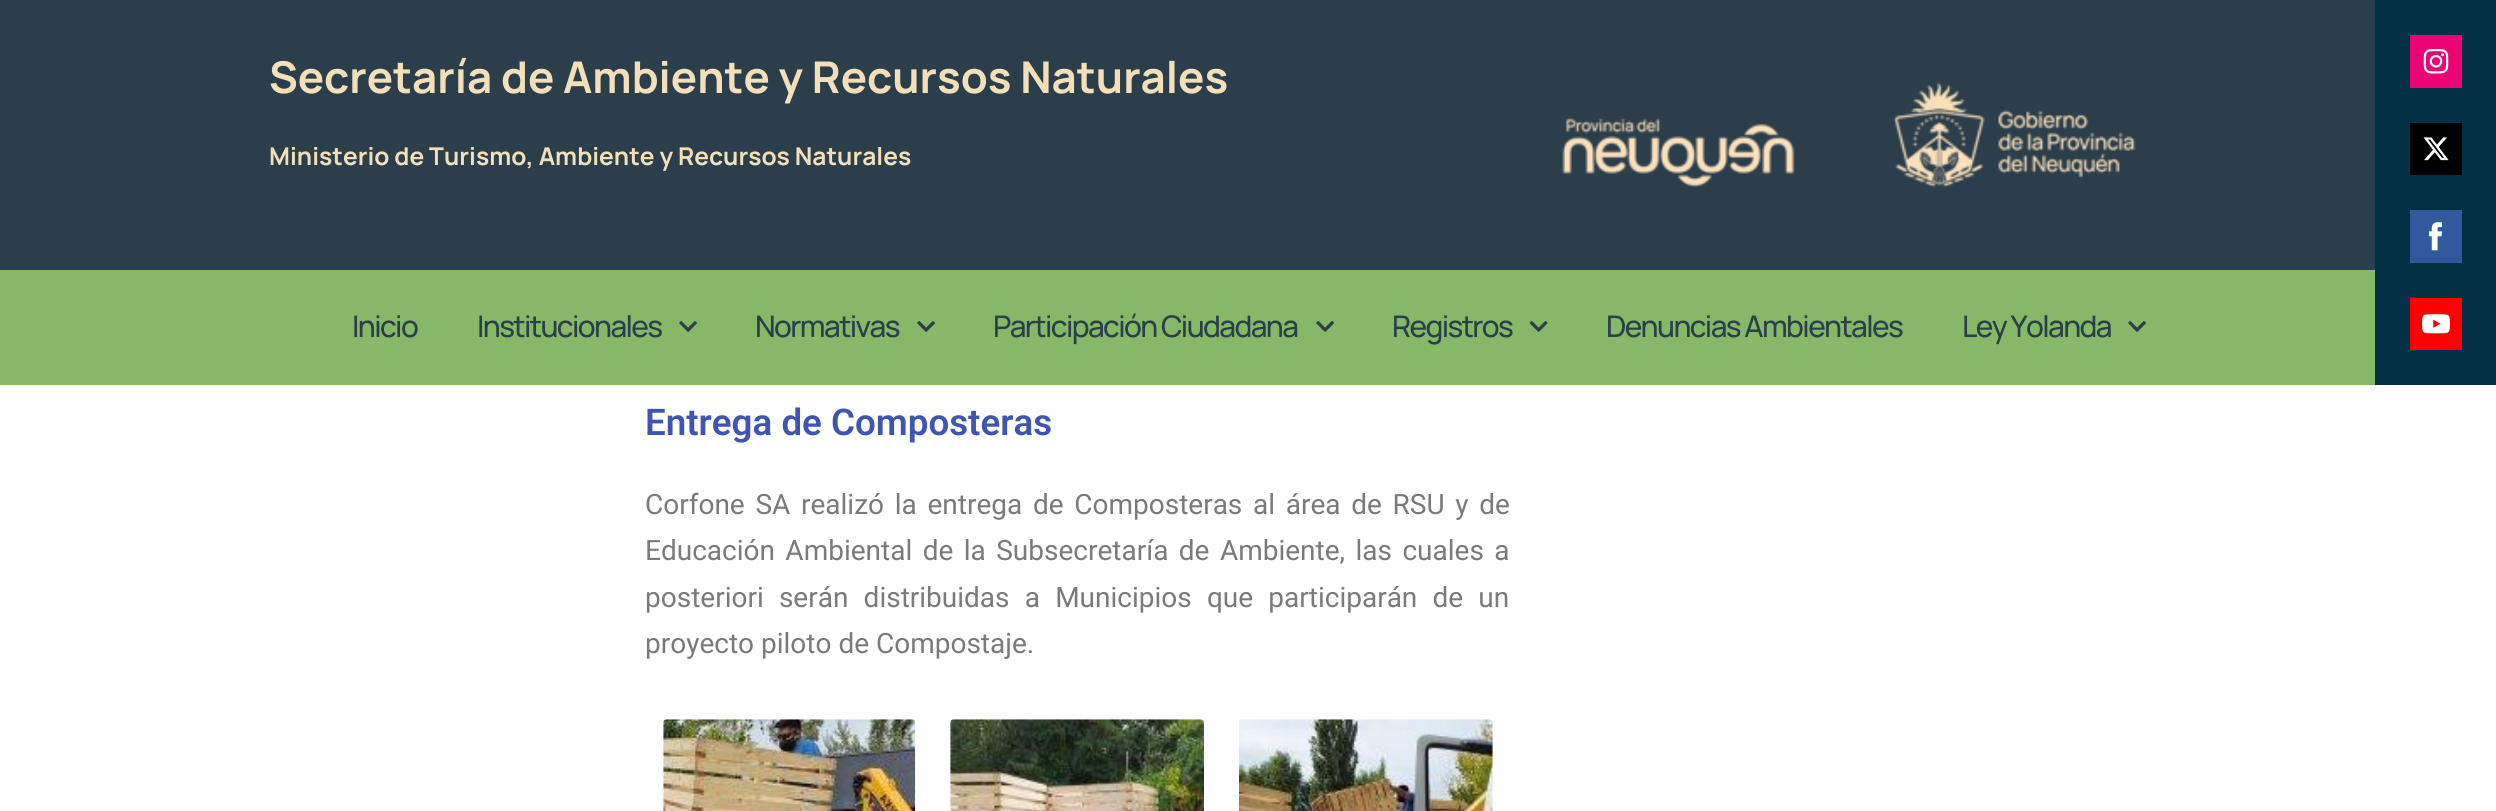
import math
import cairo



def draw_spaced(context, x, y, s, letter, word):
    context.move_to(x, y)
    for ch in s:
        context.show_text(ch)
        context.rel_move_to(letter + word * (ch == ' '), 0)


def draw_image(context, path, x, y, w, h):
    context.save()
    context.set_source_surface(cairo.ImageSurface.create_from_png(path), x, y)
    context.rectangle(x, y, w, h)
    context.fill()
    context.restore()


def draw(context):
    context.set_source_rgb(1, 1, 1)
    context.paint()
    context.set_source_rgb(43 / 255, 62 / 255, 76 / 255)
    context.rectangle(0, 0, 2375, 270)
    context.fill()
    draw_image(context, "images/1.png", 1562, 82, 574, 106)
    context.set_source_rgb(135 / 255, 184 / 255, 103 / 255)
    context.rectangle(0, 270, 2375, 115)
    context.fill()
    draw_image(context, "images/2.png", 679, 321, 18, 11)
    draw_image(context, "images/2.png", 917, 321, 18, 11)
    draw_image(context, "images/2.png", 1316, 321, 18, 11)
    draw_image(context, "images/3.png", 1529, 321, 19, 11)
    draw_image(context, "images/2.png", 2128, 321, 18, 11)
    draw_image(context, "images/4.png", 663, 719, 253, 92)
    draw_image(context, "images/5.png", 950, 719, 254, 92)
    draw_image(context, "images/6.png", 1239, 719, 254, 92)
    context.set_source_rgb(4 / 255, 48 / 255, 69 / 255)
    context.rectangle(2375, 0, 121, 385)
    context.fill()
    context.set_source_rgb(236 / 255, 4 / 255, 117 / 255)
    context.rectangle(2410, 35, 52, 53)
    context.fill()
    draw_image(context, "images/7.png", 2423, 49, 26, 25)
    context.set_source_rgb(0, 0, 0)
    context.rectangle(2410, 123, 52, 52)
    context.fill()
    draw_image(context, "images/8.png", 2423, 137, 26, 24)
    context.set_source_rgb(50 / 255, 89 / 255, 157 / 255)
    context.rectangle(2410, 210, 52, 53)
    context.fill()
    draw_image(context, "images/9.png", 2429, 222, 13, 29)
    context.set_source_rgb(1, 0, 0)
    context.rectangle(2410, 298, 52, 52)
    context.fill()
    draw_image(context, "images/10.png", 2422, 314, 28, 20)
    context.select_font_face("Manrope", cairo.FontSlant.NORMAL, cairo.FontWeight.BOLD)
    context.set_font_size(43.75)
    context.set_source_rgb(244 / 255, 223 / 255, 185 / 255)
    context.move_to(269, 93)
    context.show_text("Secretaría de Ambiente y Recursos Naturales")
    context.select_font_face("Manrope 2", cairo.FontSlant.NORMAL, cairo.FontWeight.BOLD)
    context.set_font_size(24.5)
    context.move_to(269, 165)
    context.show_text("Ministerio de Turismo, Ambiente y Recursos Naturales")
    context.select_font_face("Manrope Medium")
    context.set_font_size(29.75)
    context.set_source_rgb(43 / 255, 62 / 255, 76 / 255)
    draw_spaced(context, 352, 337, "Inicio", -1.6, 0)
    draw_spaced(context, 477, 337, "Institucionales", -1.6, 0)
    draw_spaced(context, 755, 337, "Normativas", -1.6, 0)
    draw_spaced(context, 993, 337, "Participación Ciudadana", -1.6, 0)
    draw_spaced(context, 1392, 337, "Registros", -1.6, 0)
    draw_spaced(context, 1606, 337, "Denuncias Ambientales", -1.6, 0)
    draw_spaced(context, 1962, 337, "Ley Yolanda", -1.6, 0)
    context.select_font_face("Roboto SemiBold")
    context.set_font_size(36.75)
    context.set_source_rgb(64 / 255, 84 / 255, 178 / 255)
    context.move_to(645, 435)
    context.show_text("Entrega de Composteras")
    context.select_font_face("Roboto")
    context.set_font_size(28)
    context.set_source_rgb(122 / 255, 122 / 255, 122 / 255)
    draw_spaced(context, 645, 514, "Corfone SA realizó la entrega de Composteras al área de RSU y de", 0, 3.75)
    draw_spaced(context, 645, 560, "Educación Ambiental de la Subsecretaría de Ambiente, las cuales a", 0, 3.5)
    draw_spaced(context, 645, 607, "posteriori serán distribuidas a Municipios que participarán de un", 0, 8.25)
    context.move_to(645, 653)
    context.show_text("proyecto piloto de Compostaje.")


surface = cairo.ImageSurface(cairo.Format.RGB24, 2496, 811)
context = cairo.Context(surface)
options = cairo.FontOptions()
options.set_hint_metrics(cairo.HintMetrics.OFF)
options.set_hint_style(cairo.HintStyle.NONE)
context.set_font_options(options)
context.set_miter_limit(4)
draw(context)
surface.write_to_png("out.png")
